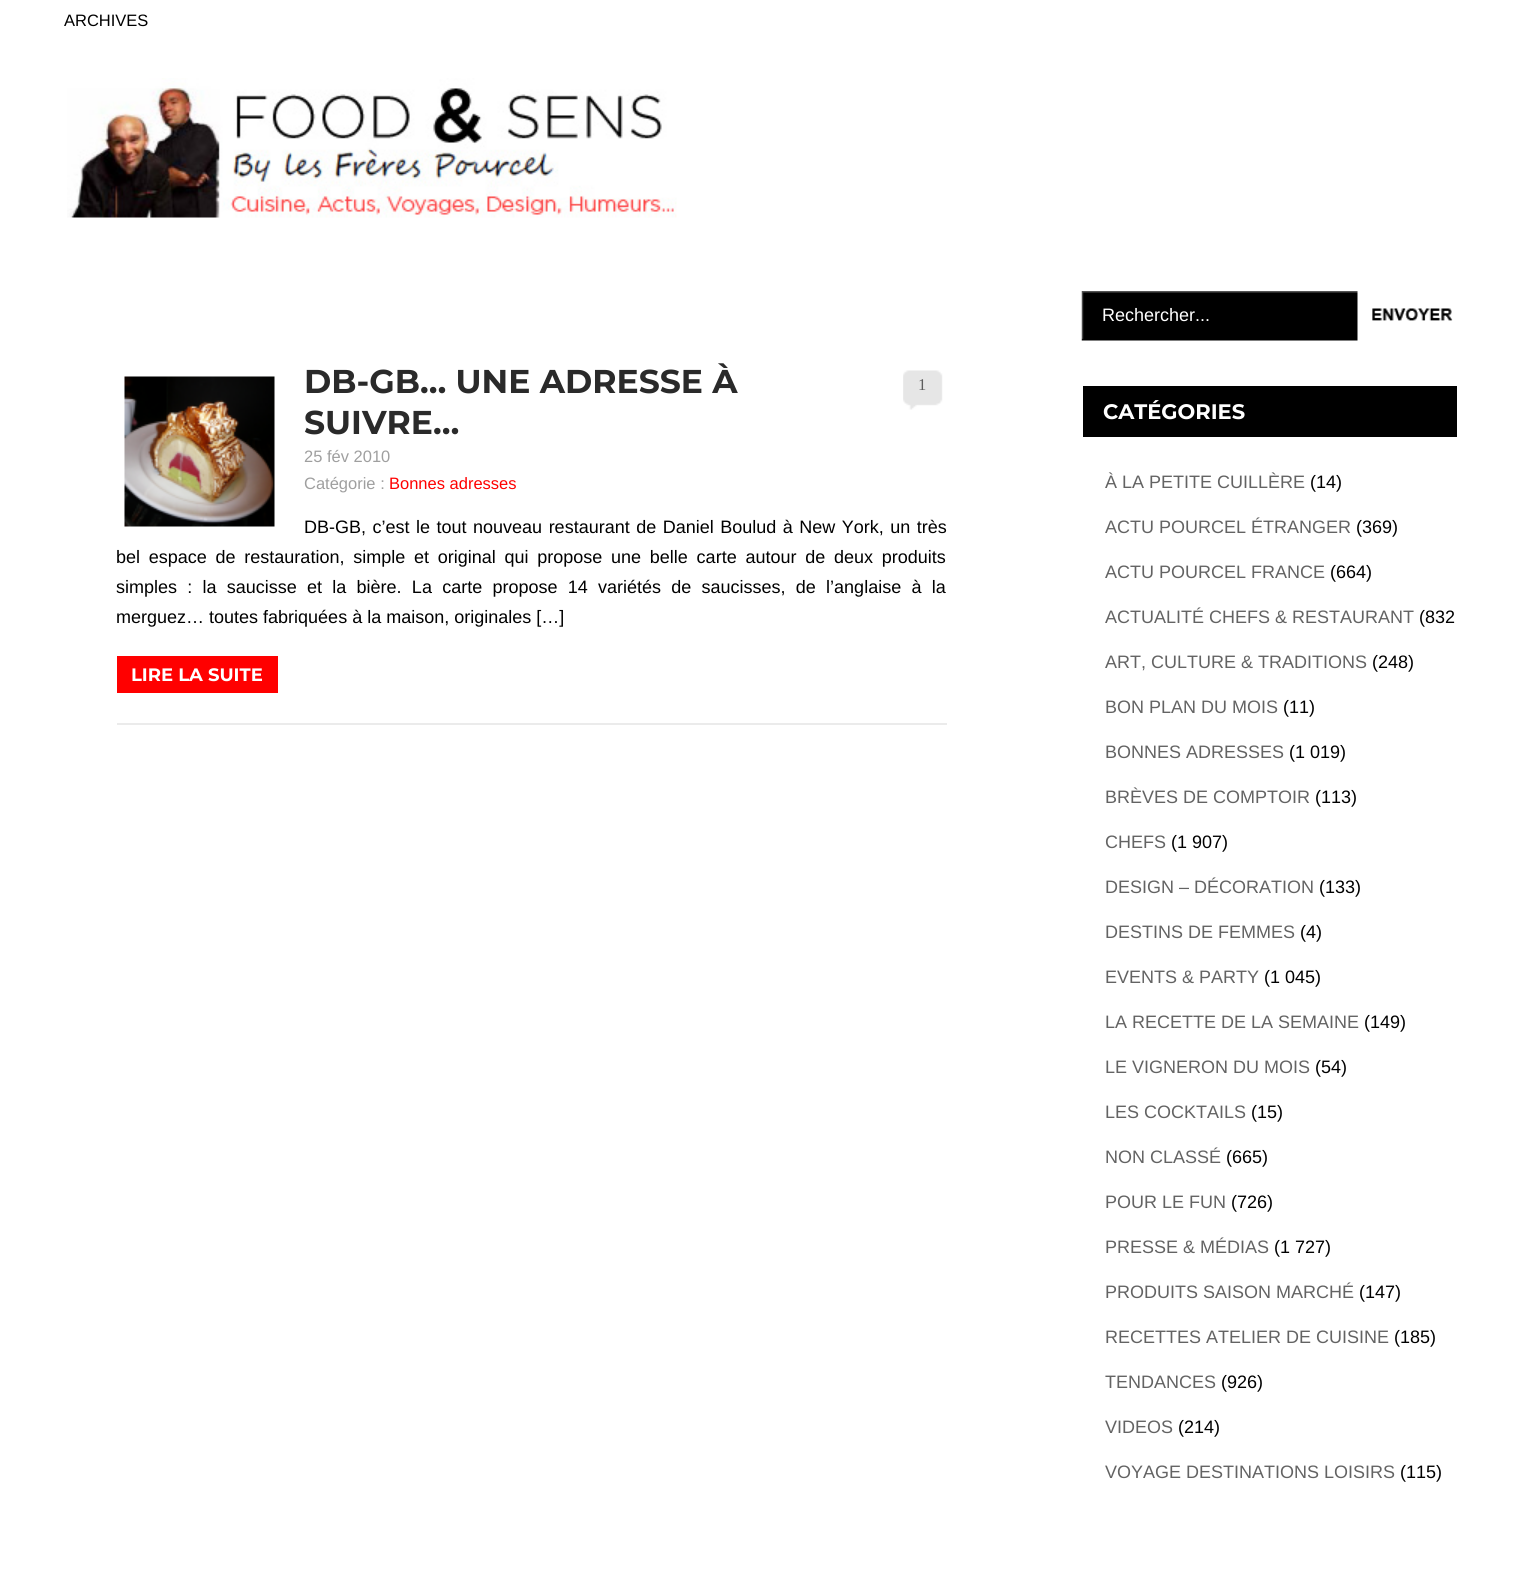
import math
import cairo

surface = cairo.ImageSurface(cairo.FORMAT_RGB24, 1523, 1582)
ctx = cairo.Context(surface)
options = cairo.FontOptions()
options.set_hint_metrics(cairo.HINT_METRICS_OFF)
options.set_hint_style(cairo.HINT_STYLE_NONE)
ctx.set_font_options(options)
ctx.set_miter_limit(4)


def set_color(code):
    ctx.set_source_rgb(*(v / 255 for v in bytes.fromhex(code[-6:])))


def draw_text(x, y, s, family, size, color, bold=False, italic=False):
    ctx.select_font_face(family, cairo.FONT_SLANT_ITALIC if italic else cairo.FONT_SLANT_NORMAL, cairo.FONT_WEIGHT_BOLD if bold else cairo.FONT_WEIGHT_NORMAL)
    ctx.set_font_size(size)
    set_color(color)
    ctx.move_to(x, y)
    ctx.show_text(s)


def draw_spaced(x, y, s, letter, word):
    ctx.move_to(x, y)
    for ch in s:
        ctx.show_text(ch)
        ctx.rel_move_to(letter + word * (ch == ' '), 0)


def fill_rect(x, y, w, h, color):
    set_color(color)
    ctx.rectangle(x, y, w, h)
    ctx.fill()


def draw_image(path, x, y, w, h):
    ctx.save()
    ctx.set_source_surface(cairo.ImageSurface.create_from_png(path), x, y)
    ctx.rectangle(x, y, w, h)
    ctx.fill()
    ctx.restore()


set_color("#ffffff")
ctx.paint()
draw_text(64, 26, "ARCHIVES", "Liberation Sans", 16.5, "#000000")
draw_image("assets/img1.png", 67, 78, 610, 140)
draw_image("assets/img2.png", 124, 376, 151, 151)
draw_text(304, 393, "DB-GB… UNE ADRESSE À", "Montserrat Thin", 33, "#2a2a2a")
draw_text(304, 434, "SUIVRE…", "Montserrat Thin", 33, "#2a2a2a")
draw_image("assets/img3.png", 903, 370, 40, 40)
draw_text(918, 390, "1", "Liberation Serif", 16.5, "#5d5d5d")
draw_text(304, 462, "25 fév 2010", "Liberation Sans", 16.5, "#9f9f9f")
draw_text(304, 489, "Catégorie :", "Liberation Sans", 16.5, "#9f9f9f")
draw_text(389, 489, "Bonnes adresses", "Liberation Sans", 16.5, "#ff0000")
ctx.set_font_size(18)
set_color("#000000")
draw_spaced(304, 533, "DB-GB, c’est le tout nouveau restaurant de Daniel Boulud à New York, un très", 0, 1.5)
draw_spaced(116, 563, "bel espace de restauration, simple et original qui propose une belle carte autour de deux produits", 0, 3.75)
draw_spaced(116, 593, "simples : la saucisse et la bière. La carte propose 14 variétés de saucisses, de l’anglaise à la", 0, 5.25)
draw_text(116, 623, "merguez… toutes fabriquées à la maison, originales […]", "Liberation Sans", 18, "#000000")
fill_rect(117, 656, 161, 37, "#ff0000")
draw_text(131, 681, "LIRE LA SUITE", "Montserrat Thin", 18, "#ffffff")
fill_rect(117, 723, 830, 2, "#ebebeb")
draw_image("assets/img4.png", 1081, 291, 277, 50)
draw_text(1102, 321, "Rechercher...", "Liberation Sans", 18, "#ffffff")
draw_image("assets/img5.png", 1372, 308, 81, 13)
fill_rect(1083, 386, 374, 51, "#000000")
draw_text(1103, 419, "CATÉGORIES", "Montserrat Thin", 21, "#ffffff")
draw_text(1105, 488, "À LA PETITE CUILLÈRE", "Liberation Sans", 18, "#636363")
draw_text(1310, 488, "(14)", "Liberation Sans", 18, "#000000")
draw_text(1105, 533, "ACTU POURCEL ÉTRANGER", "Liberation Sans", 18, "#636363")
draw_text(1356, 533, "(369)", "Liberation Sans", 18, "#000000")
draw_text(1105, 578, "ACTU POURCEL FRANCE", "Liberation Sans", 18, "#636363")
draw_text(1330, 578, "(664)", "Liberation Sans", 18, "#000000")
draw_text(1105, 623, "ACTUALITÉ CHEFS & RESTAURANT", "Liberation Sans", 18, "#636363")
draw_text(1419, 623, "(832", "Liberation Sans", 18, "#000000")
draw_text(1105, 668, "ART, CULTURE & TRADITIONS", "Liberation Sans", 18, "#636363")
draw_text(1372, 668, "(248)", "Liberation Sans", 18, "#000000")
draw_text(1105, 713, "BON PLAN DU MOIS", "Liberation Sans", 18, "#636363")
draw_text(1283, 713, "(11)", "Liberation Sans", 18, "#000000")
draw_text(1105, 758, "BONNES ADRESSES", "Liberation Sans", 18, "#636363")
draw_text(1289, 758, "(1 019)", "Liberation Sans", 18, "#000000")
draw_text(1105, 803, "BRÈVES DE COMPTOIR", "Liberation Sans", 18, "#636363")
draw_text(1315, 803, "(113)", "Liberation Sans", 18, "#000000")
draw_text(1105, 848, "CHEFS", "Liberation Sans", 18, "#636363")
draw_text(1171, 848, "(1 907)", "Liberation Sans", 18, "#000000")
draw_text(1105, 893, "DESIGN – DÉCORATION", "Liberation Sans", 18, "#636363")
draw_text(1319, 893, "(133)", "Liberation Sans", 18, "#000000")
draw_text(1105, 938, "DESTINS DE FEMMES", "Liberation Sans", 18, "#636363")
draw_text(1300, 938, "(4)", "Liberation Sans", 18, "#000000")
draw_text(1105, 983, "EVENTS & PARTY", "Liberation Sans", 18, "#636363")
draw_text(1264, 983, "(1 045)", "Liberation Sans", 18, "#000000")
draw_text(1105, 1028, "LA RECETTE DE LA SEMAINE", "Liberation Sans", 18, "#636363")
draw_text(1364, 1028, "(149)", "Liberation Sans", 18, "#000000")
draw_text(1105, 1073, "LE VIGNERON DU MOIS", "Liberation Sans", 18, "#636363")
draw_text(1315, 1073, "(54)", "Liberation Sans", 18, "#000000")
draw_text(1105, 1118, "LES COCKTAILS", "Liberation Sans", 18, "#636363")
draw_text(1251, 1118, "(15)", "Liberation Sans", 18, "#000000")
draw_text(1105, 1163, "NON CLASSÉ", "Liberation Sans", 18, "#636363")
draw_text(1226, 1163, "(665)", "Liberation Sans", 18, "#000000")
draw_text(1105, 1208, "POUR LE FUN", "Liberation Sans", 18, "#636363")
draw_text(1231, 1208, "(726)", "Liberation Sans", 18, "#000000")
draw_text(1105, 1253, "PRESSE & MÉDIAS", "Liberation Sans", 18, "#636363")
draw_text(1274, 1253, "(1 727)", "Liberation Sans", 18, "#000000")
draw_text(1105, 1298, "PRODUITS SAISON MARCHÉ", "Liberation Sans", 18, "#636363")
draw_text(1359, 1298, "(147)", "Liberation Sans", 18, "#000000")
draw_text(1105, 1343, "RECETTES ATELIER DE CUISINE", "Liberation Sans", 18, "#636363")
draw_text(1394, 1343, "(185)", "Liberation Sans", 18, "#000000")
draw_text(1105, 1388, "TENDANCES", "Liberation Sans", 18, "#636363")
draw_text(1221, 1388, "(926)", "Liberation Sans", 18, "#000000")
draw_text(1105, 1433, "VIDEOS", "Liberation Sans", 18, "#636363")
draw_text(1178, 1433, "(214)", "Liberation Sans", 18, "#000000")
draw_text(1105, 1478, "VOYAGE DESTINATIONS LOISIRS", "Liberation Sans", 18, "#636363")
draw_text(1400, 1478, "(115)", "Liberation Sans", 18, "#000000")
surface.write_to_png("output.png")
